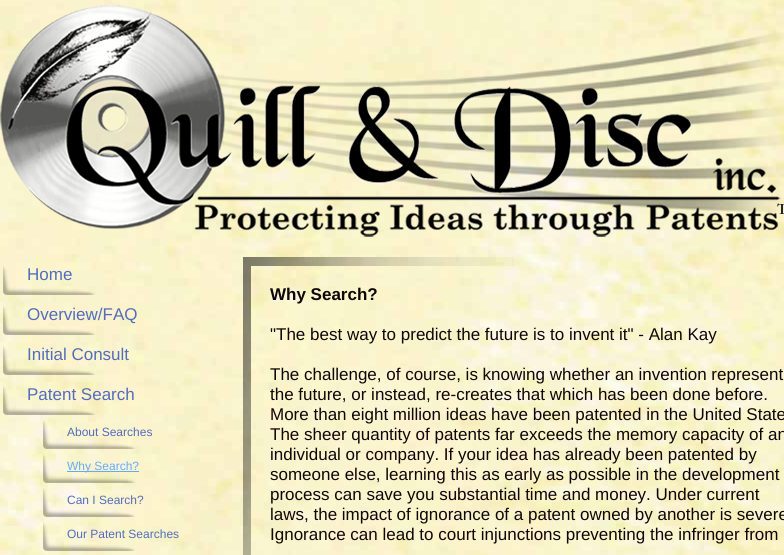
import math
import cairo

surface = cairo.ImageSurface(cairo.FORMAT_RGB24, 784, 555)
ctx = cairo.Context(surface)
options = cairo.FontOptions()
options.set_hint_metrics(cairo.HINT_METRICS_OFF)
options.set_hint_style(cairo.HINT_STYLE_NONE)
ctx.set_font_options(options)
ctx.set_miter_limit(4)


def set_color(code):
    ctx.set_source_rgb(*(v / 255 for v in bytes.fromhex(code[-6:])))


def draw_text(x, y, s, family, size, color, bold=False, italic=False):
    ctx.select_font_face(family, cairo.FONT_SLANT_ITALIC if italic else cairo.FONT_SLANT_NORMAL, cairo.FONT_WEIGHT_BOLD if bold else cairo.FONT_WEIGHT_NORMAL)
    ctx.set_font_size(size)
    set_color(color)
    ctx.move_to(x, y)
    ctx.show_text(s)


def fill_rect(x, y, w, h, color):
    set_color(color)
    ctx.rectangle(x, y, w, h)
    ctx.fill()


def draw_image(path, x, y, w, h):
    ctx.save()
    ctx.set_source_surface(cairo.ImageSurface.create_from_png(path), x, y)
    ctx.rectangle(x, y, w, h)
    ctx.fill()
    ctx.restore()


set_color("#ffffff")
ctx.paint()
draw_image("assets/img1.png", 0, 0, 784, 555)
draw_image("assets/img2.png", 0, 5, 784, 232)
draw_image("assets/img3.png", 3, 266, 92, 29)
draw_text(27, 280, "Home", "Liberation Sans", 17, "#536dbd")
draw_image("assets/img4.png", 3, 306, 92, 29)
draw_text(27, 320, "Overview/FAQ", "Liberation Sans", 17, "#536dbd")
draw_image("assets/img5.png", 3, 346, 92, 29)
draw_text(27, 360, "Initial Consult", "Liberation Sans", 17, "#536dbd")
draw_image("assets/img6.png", 3, 386, 92, 29)
draw_text(27, 400, "Patent Search", "Liberation Sans", 17, "#536dbd")
draw_image("assets/img7.png", 43, 420, 92, 29)
draw_text(67, 436, "About Searches", "Liberation Sans", 12, "#536dbd")
draw_image("assets/img8.png", 43, 454, 92, 29)
fill_rect(67, 471, 72, 1, "#66aaff")
draw_text(67, 470, "Why Search?", "Liberation Sans", 12, "#66aaff")
draw_image("assets/img9.png", 43, 488, 92, 29)
draw_text(67, 504, "Can I Search?", "Liberation Sans", 12, "#536dbd")
draw_image("assets/img10.png", 43, 522, 92, 29)
draw_text(67, 538, "Our Patent Searches", "Liberation Sans", 12, "#536dbd")
draw_image("assets/img11.png", 243, 257, 271, 298)
draw_text(270, 300, "Why Search?", "Liberation Sans", 17, "#100508", bold=True)
draw_text(270, 340, "\"The best way to predict the future is to invent it\" - Alan Kay", "Liberation Sans", 17, "#100508")
draw_text(270, 380, "The challenge, of course, is knowing whether an invention represent", "Liberation Sans", 17, "#100508")
draw_text(270, 400, "the future, or instead, re-creates that which has been done before.", "Liberation Sans", 17, "#100508")
draw_text(270, 420, "More than eight million ideas have been patented in the United State", "Liberation Sans", 17, "#100508")
draw_text(270, 440, "The sheer quantity of patents far exceeds the memory capacity of an", "Liberation Sans", 17, "#100508")
draw_text(270, 460, "individual or company. If your idea has already been patented by", "Liberation Sans", 17, "#100508")
draw_text(270, 480, "someone else, learning this as early as possible in the development", "Liberation Sans", 17, "#100508")
draw_text(270, 500, "process can save you substantial time and money. Under current", "Liberation Sans", 17, "#100508")
draw_text(270, 520, "laws, the impact of ignorance of a patent owned by another is severe", "Liberation Sans", 17, "#100508")
draw_text(270, 540, "Ignorance can lead to court injunctions preventing the infringer from", "Liberation Sans", 17, "#100508")
surface.write_to_png("output.png")
